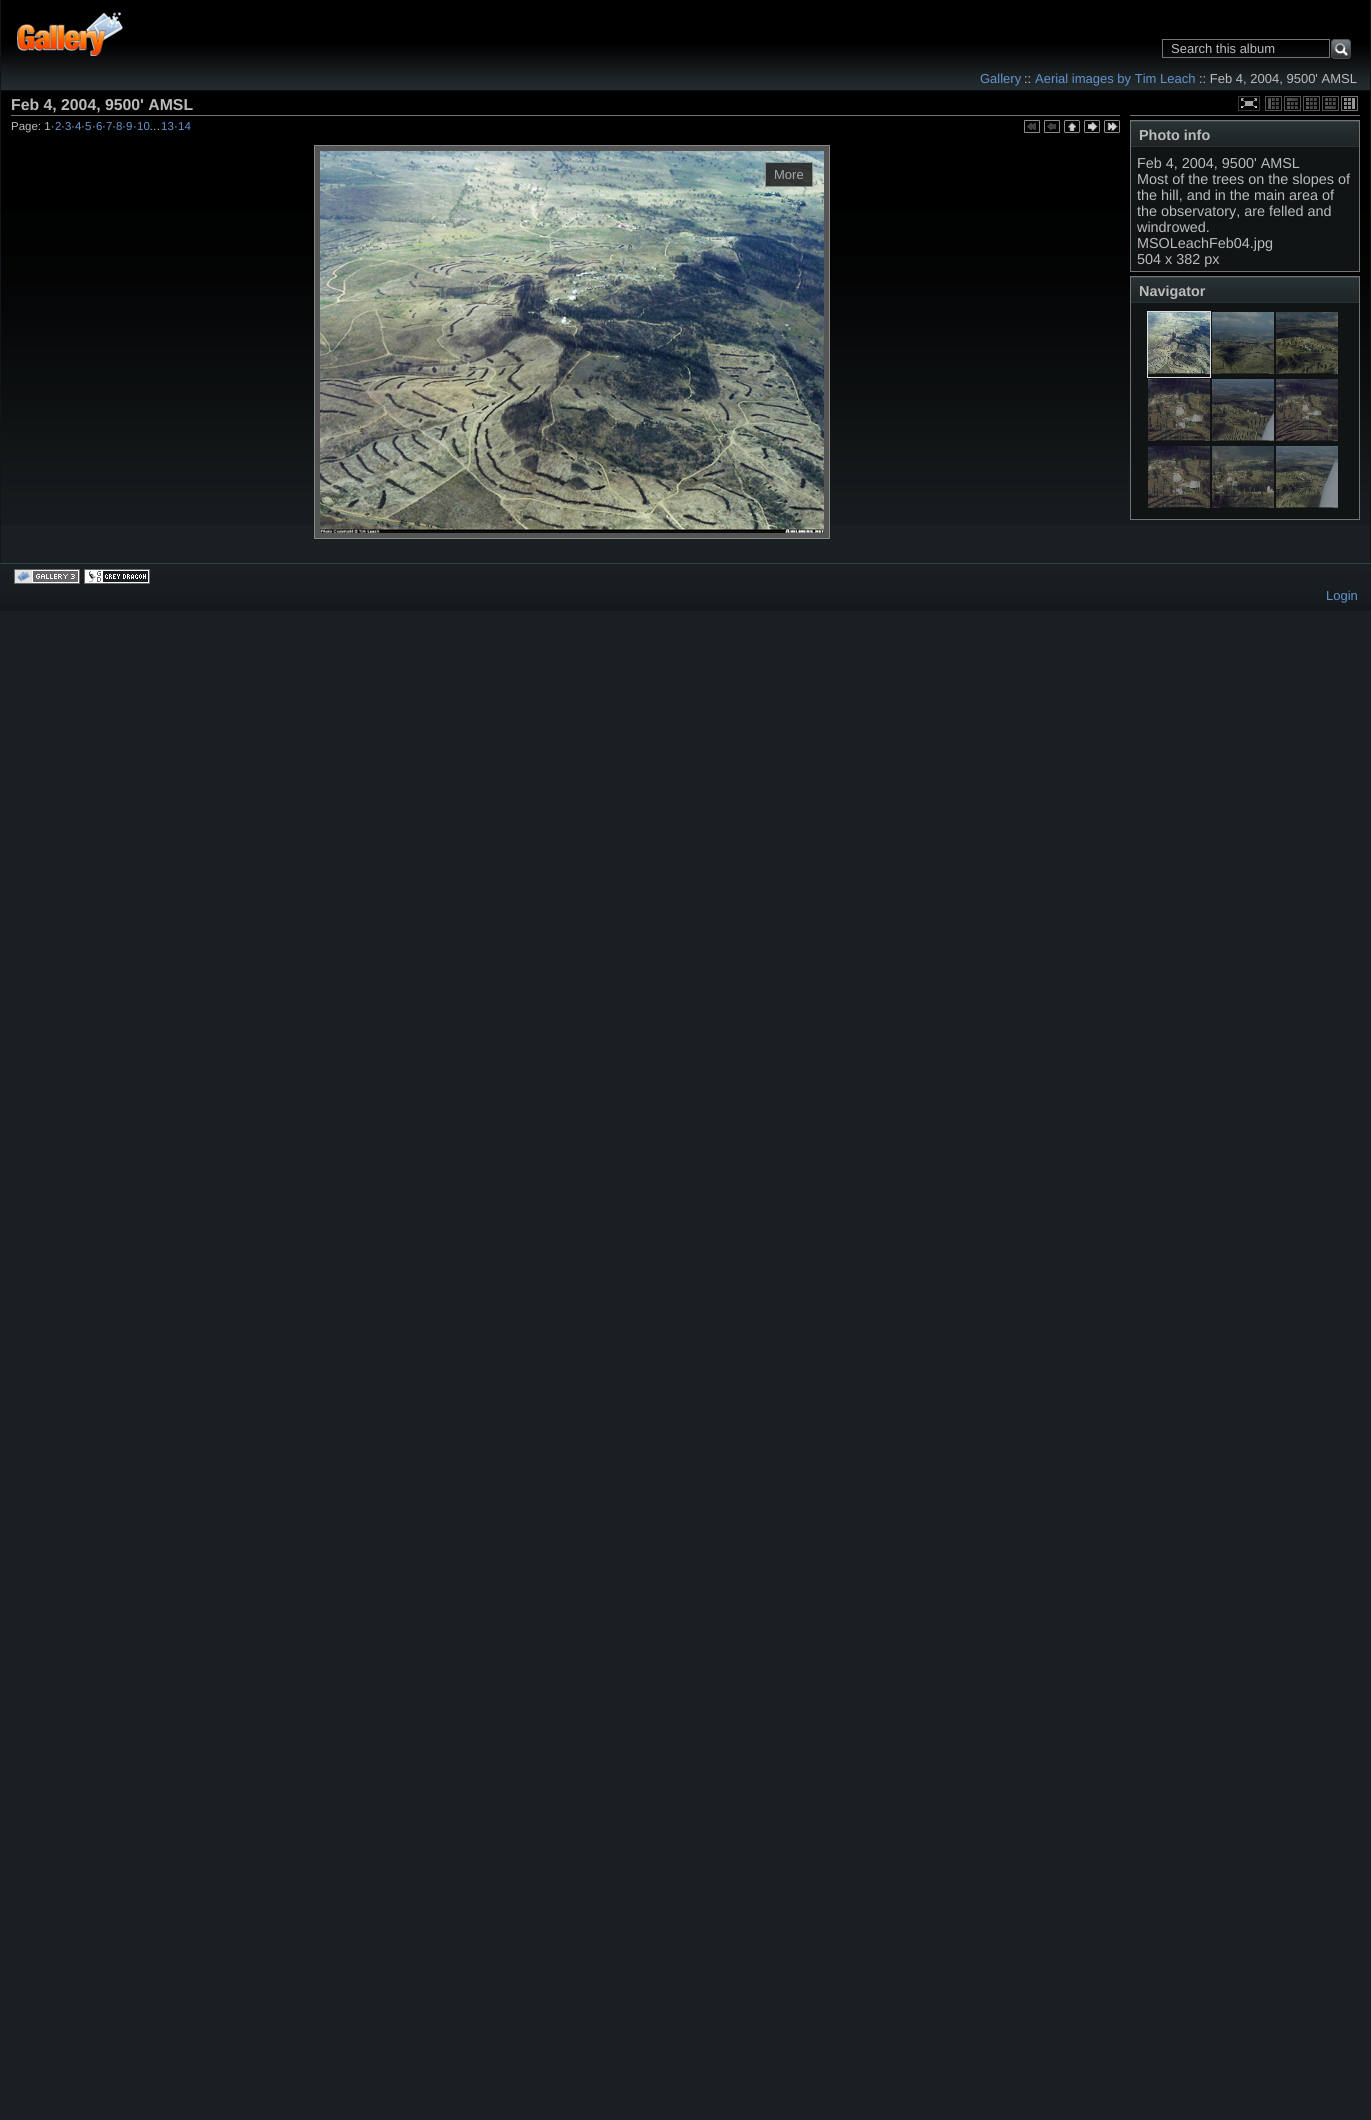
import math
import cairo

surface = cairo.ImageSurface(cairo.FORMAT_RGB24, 1371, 2120)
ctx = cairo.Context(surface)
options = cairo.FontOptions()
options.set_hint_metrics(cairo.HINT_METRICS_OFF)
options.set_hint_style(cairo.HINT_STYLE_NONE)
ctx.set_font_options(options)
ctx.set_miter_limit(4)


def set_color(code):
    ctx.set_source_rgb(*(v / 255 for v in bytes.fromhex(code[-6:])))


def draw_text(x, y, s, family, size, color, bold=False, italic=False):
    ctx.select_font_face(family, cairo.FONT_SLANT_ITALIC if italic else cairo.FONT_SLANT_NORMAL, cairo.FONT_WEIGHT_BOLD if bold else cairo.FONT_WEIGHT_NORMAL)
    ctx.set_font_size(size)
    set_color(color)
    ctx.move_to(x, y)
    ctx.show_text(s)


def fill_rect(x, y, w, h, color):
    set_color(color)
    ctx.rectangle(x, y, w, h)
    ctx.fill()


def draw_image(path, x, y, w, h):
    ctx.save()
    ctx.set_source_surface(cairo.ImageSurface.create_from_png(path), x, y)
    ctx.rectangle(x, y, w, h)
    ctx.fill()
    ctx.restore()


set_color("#1a2022")
ctx.paint()
draw_image("assets/img1.png", 1, 0, 1369, 90)
draw_image("assets/img2.png", 17, 12, 106, 44)
ctx.rectangle(1162.5, 39.5, 167, 18)
set_color("#737373")
ctx.set_line_width(1)
ctx.stroke()
draw_text(1171, 53, "Search this album", "Liberation Sans", 13, "#bbbbbb")
draw_image("assets/img3.png", 1331, 39, 20, 20)
draw_text(980, 83, "Gallery", "Liberation Sans", 13, "#6392cf")
draw_text(1024, 83, "::", "Liberation Sans", 13, "#bbbbbb")
draw_text(1035, 83, "Aerial images by Tim Leach", "Liberation Sans", 13, "#6392cf")
draw_text(1199, 83, ":: Feb 4, 2004, 9500' AMSL", "Liberation Sans", 13, "#bbbbbb")
draw_image("assets/img4.png", 1, 90, 1369, 435)
fill_rect(1370, 0, 1, 563, "#10151c")
fill_rect(0, 0, 1, 563, "#10151c")
fill_rect(11, 115, 1109, 1, "#737373")
draw_text(11, 110, "Feb 4, 2004, 9500' AMSL", "Liberation Sans", 15.8, "#bbbbbb", bold=True)
draw_text(11, 130, "Page: 1·", "Liberation Sans", 11.5, "#bbbbbb")
draw_text(55, 130, "2", "Liberation Sans", 11.5, "#6392cf")
draw_text(61, 130, "·", "Liberation Sans", 11.5, "#bbbbbb")
draw_text(65, 130, "3", "Liberation Sans", 11.5, "#6392cf")
draw_text(71, 130, "·", "Liberation Sans", 11.5, "#bbbbbb")
draw_text(75, 130, "4", "Liberation Sans", 11.5, "#6392cf")
draw_text(81, 130, "·", "Liberation Sans", 11.5, "#bbbbbb")
draw_text(85, 130, "5", "Liberation Sans", 11.5, "#6392cf")
draw_text(92, 130, "·", "Liberation Sans", 11.5, "#bbbbbb")
draw_text(96, 130, "6", "Liberation Sans", 11.5, "#6392cf")
draw_text(102, 130, "·", "Liberation Sans", 11.5, "#bbbbbb")
draw_text(106, 130, "7", "Liberation Sans", 11.5, "#6392cf")
draw_text(112, 130, "·", "Liberation Sans", 11.5, "#bbbbbb")
draw_text(116, 130, "8", "Liberation Sans", 11.5, "#6392cf")
draw_text(122, 130, "·", "Liberation Sans", 11.5, "#bbbbbb")
draw_text(126, 130, "9", "Liberation Sans", 11.5, "#6392cf")
draw_text(133, 130, "·", "Liberation Sans", 11.5, "#bbbbbb")
draw_text(137, 130, "10", "Liberation Sans", 11.5, "#6392cf")
draw_text(161, 130, "13", "Liberation Sans", 11.5, "#6392cf")
draw_text(174, 130, "·", "Liberation Sans", 11.5, "#bbbbbb")
draw_text(178, 130, "14", "Liberation Sans", 11.5, "#6392cf")
draw_text(149, 130, "…", "Liberation Sans", 11.5, "#bbbbbb")
draw_image("assets/img5.png", 1024, 120, 16, 13)
draw_image("assets/img6.png", 1044, 120, 16, 13)
draw_image("assets/img7.png", 1064, 120, 16, 13)
draw_image("assets/img8.png", 1084, 120, 16, 13)
draw_image("assets/img9.png", 1104, 120, 16, 13)
set_color("#555555")
ctx.rectangle(314.5, 145.5, 515, 393)
ctx.fill_preserve()
set_color("#888888")
ctx.stroke()
draw_image("assets/img10.png", 320, 151, 504, 382)
ctx.set_source_rgba(0.118, 0.118, 0.118, 0.85)
ctx.rectangle(765, 162, 48, 25)
ctx.fill()
ctx.rectangle(765.5, 162.5, 47, 24)
ctx.set_source_rgba(0.6, 0.6, 0.6, 0.85)
ctx.stroke()
draw_text(774, 179, "More", "Liberation Sans", 13, "#a6a7a7")
draw_image("assets/img11.png", 1238, 96, 22, 15)
draw_image("assets/img12.png", 1265, 96, 17, 15)
draw_image("assets/img13.png", 1284, 96, 17, 15)
draw_image("assets/img14.png", 1303, 96, 17, 15)
draw_image("assets/img15.png", 1322, 96, 17, 15)
draw_image("assets/img16.png", 1341, 96, 17, 15)
fill_rect(1130, 115, 230, 1, "#737373")
fill_rect(1131, 147, 228, 124, "#101415")
ctx.rectangle(1130.5, 120.5, 229, 151)
set_color("#737373")
ctx.stroke()
draw_image("assets/img17.png", 1131, 121, 228, 26)
draw_text(1139, 140, "Photo info", "Liberation Sans", 14.4, "#bbbbbb", bold=True)
draw_text(1137, 168, "Feb 4, 2004, 9500' AMSL", "Liberation Sans", 14.4, "#bbbbbb")
draw_text(1137, 184, "Most of the trees on the slopes of", "Liberation Sans", 14.4, "#bbbbbb")
draw_text(1137, 200, "the hill, and in the main area of", "Liberation Sans", 14.4, "#bbbbbb")
draw_text(1137, 216, "the observatory, are felled and", "Liberation Sans", 14.4, "#bbbbbb")
draw_text(1137, 232, "windrowed.", "Liberation Sans", 14.4, "#bbbbbb")
draw_text(1137, 248, "MSOLeachFeb04.jpg", "Liberation Sans", 14.4, "#bbbbbb")
draw_text(1137, 264, "504 x 382 px", "Liberation Sans", 14.4, "#bbbbbb")
fill_rect(1131, 303, 228, 216, "#101415")
ctx.rectangle(1130.5, 276.5, 229, 243)
set_color("#737373")
ctx.stroke()
draw_image("assets/img17.png", 1131, 277, 228, 26)
draw_text(1139, 296, "Navigator", "Liberation Sans", 14.4, "#bbbbbb", bold=True)
ctx.rectangle(1147.5, 311.5, 63, 66)
set_color("#dddddd")
ctx.stroke()
draw_image("assets/img18.png", 1148, 312, 62, 62)
draw_image("assets/img19.png", 1212, 312, 62, 62)
draw_image("assets/img20.png", 1276, 312, 62, 62)
draw_image("assets/img21.png", 1148, 379, 62, 62)
draw_image("assets/img22.png", 1212, 379, 62, 62)
draw_image("assets/img23.png", 1276, 379, 62, 62)
draw_image("assets/img24.png", 1148, 446, 62, 62)
draw_image("assets/img25.png", 1212, 446, 62, 62)
draw_image("assets/img26.png", 1276, 446, 62, 62)
draw_image("assets/img27.png", 0, 563, 1371, 48)
draw_image("assets/img28.png", 14, 569, 66, 15)
draw_image("assets/img29.png", 84, 569, 66, 15)
draw_text(1326, 600, "Login", "Liberation Sans", 13, "#6392cf")
surface.write_to_png("output.png")
